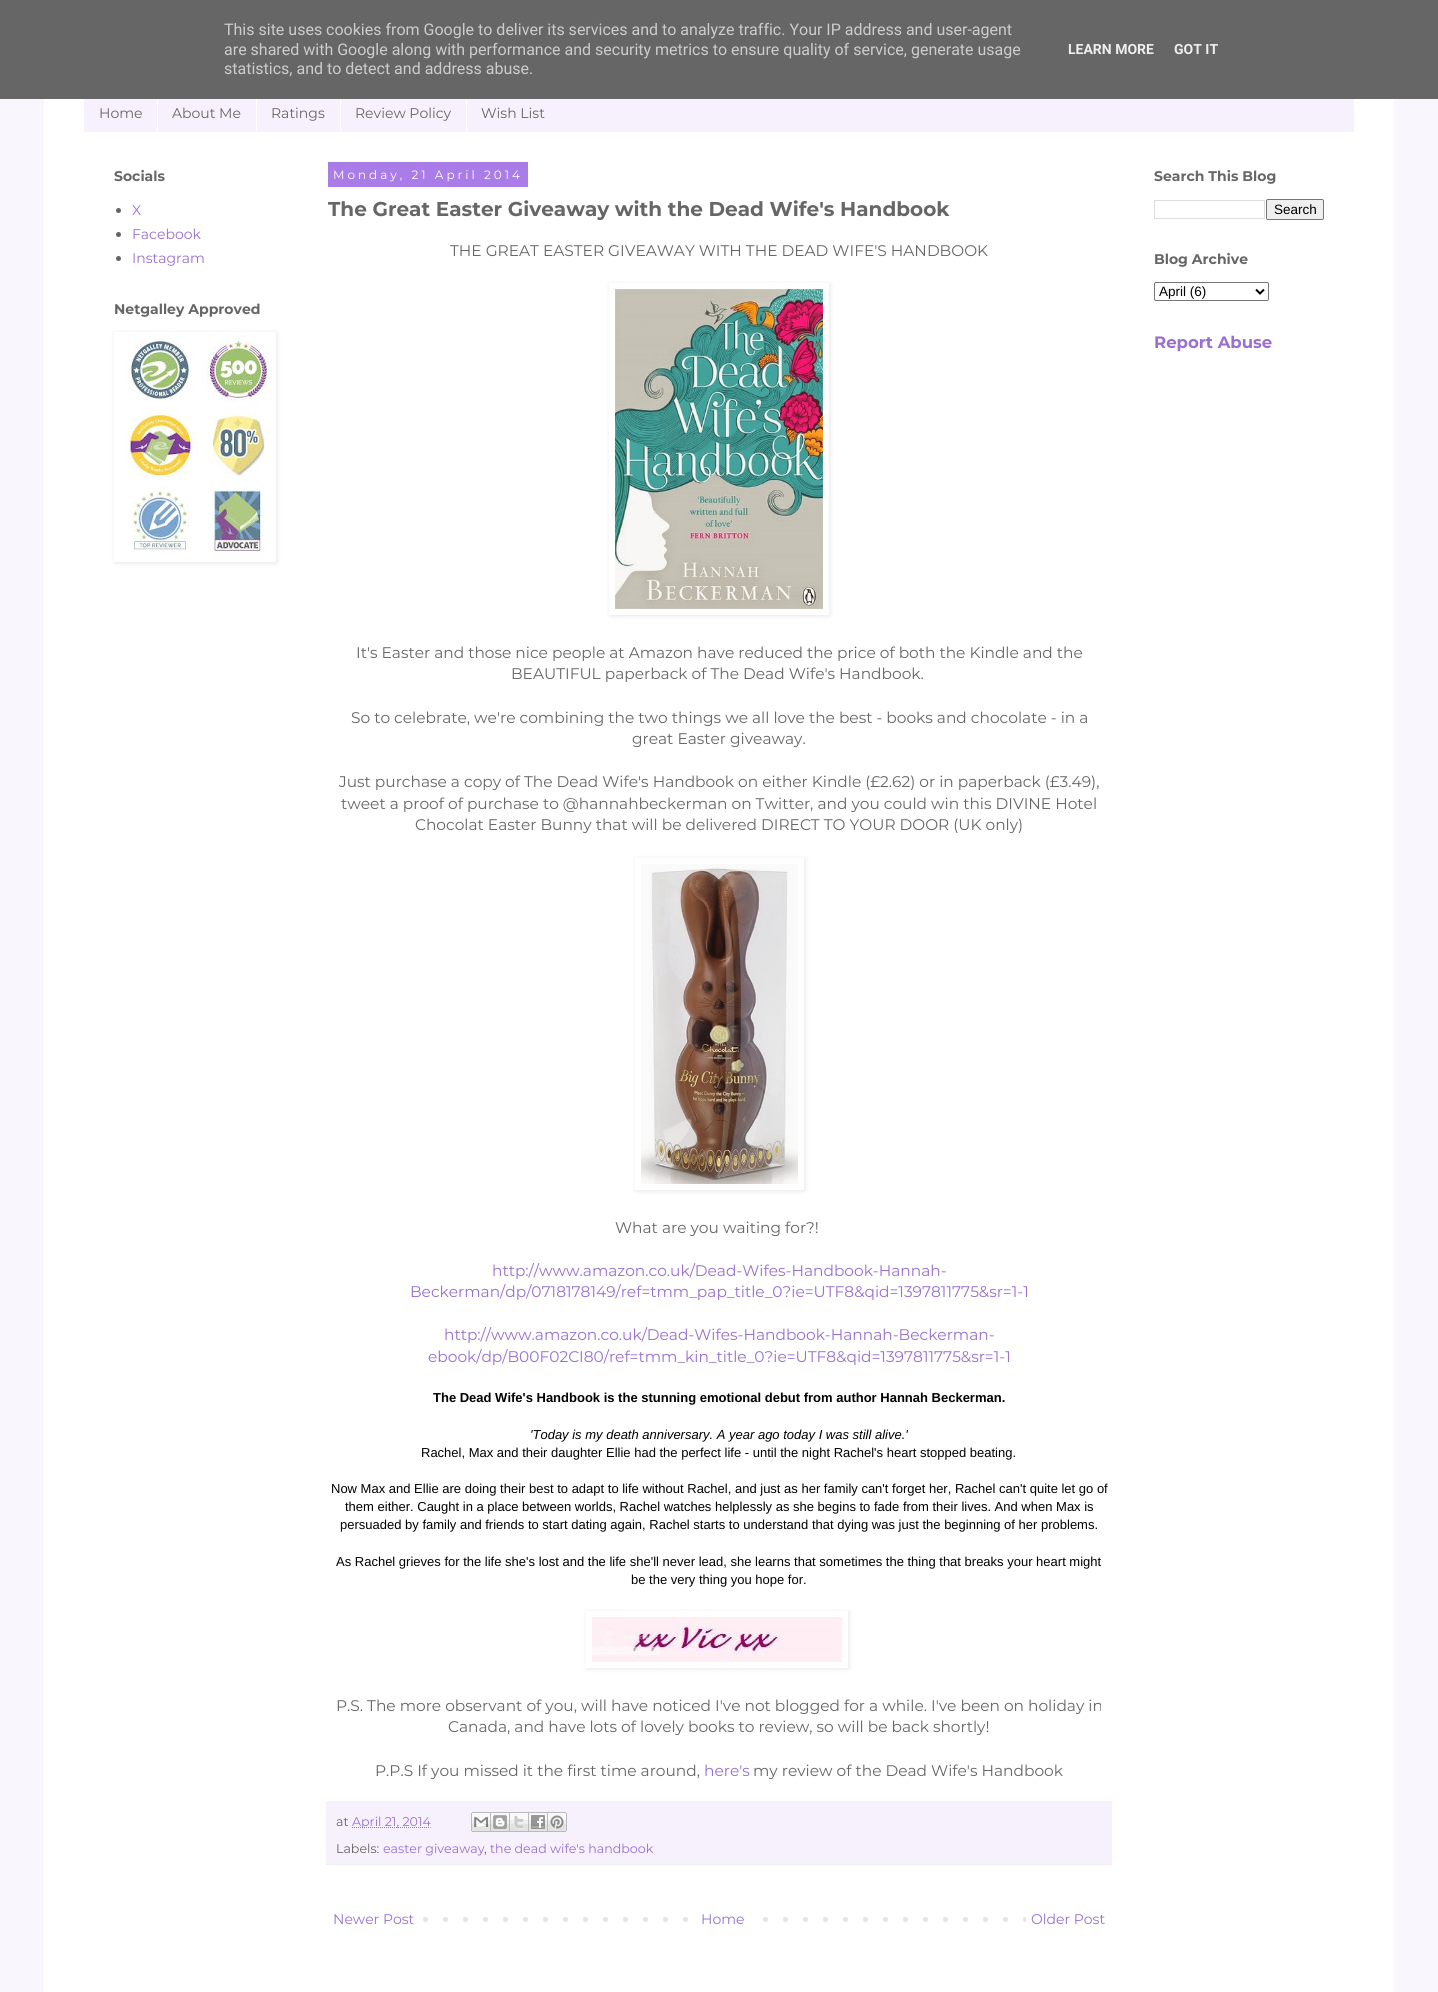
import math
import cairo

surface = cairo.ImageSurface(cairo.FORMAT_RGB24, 1438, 1992)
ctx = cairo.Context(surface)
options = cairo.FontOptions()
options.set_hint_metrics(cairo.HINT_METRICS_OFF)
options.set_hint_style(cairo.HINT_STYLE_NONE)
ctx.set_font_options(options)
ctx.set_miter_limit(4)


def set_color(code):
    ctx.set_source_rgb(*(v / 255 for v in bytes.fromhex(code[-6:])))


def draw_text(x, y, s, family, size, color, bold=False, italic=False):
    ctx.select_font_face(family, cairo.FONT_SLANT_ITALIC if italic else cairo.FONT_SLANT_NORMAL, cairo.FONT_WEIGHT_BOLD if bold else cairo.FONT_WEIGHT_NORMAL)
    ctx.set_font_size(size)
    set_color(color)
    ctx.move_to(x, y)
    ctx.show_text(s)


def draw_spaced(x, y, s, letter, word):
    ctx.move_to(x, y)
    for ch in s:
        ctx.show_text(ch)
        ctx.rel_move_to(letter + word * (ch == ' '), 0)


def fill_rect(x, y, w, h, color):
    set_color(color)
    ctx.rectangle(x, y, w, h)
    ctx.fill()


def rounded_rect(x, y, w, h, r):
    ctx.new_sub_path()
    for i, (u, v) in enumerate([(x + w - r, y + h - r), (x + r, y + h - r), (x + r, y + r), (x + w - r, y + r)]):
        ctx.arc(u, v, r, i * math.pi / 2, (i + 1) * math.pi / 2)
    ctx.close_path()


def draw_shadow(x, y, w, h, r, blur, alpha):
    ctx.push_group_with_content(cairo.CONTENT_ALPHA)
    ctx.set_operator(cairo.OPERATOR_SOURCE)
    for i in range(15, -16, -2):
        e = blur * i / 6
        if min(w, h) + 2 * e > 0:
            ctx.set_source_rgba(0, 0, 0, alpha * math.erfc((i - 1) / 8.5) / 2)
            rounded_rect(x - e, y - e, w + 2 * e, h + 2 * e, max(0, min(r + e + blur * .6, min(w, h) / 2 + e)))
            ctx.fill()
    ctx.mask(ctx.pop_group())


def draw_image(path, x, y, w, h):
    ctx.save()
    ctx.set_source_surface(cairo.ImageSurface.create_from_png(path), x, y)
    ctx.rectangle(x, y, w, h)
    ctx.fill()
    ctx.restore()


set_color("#f9f6fd")
ctx.paint()
fill_rect(44, 99, 1350, 1893, "#ffffff")
fill_rect(84, 99, 1270, 33, "#f6f1fc")
fill_rect(157, 96, 1, 35, "#ffffff")
fill_rect(256, 96, 1, 35, "#ffffff")
fill_rect(340, 96, 1, 35, "#ffffff")
fill_rect(466, 96, 1, 35, "#ffffff")
fill_rect(0, 0, 1438, 99, "#666666")
draw_text(224, 35, "This site uses cookies from Google to deliver its services and to analyze traffic. Your IP address and user-agent", "Roboto", 16, "#cccccc")
draw_text(224, 55, "are shared with Google along with performance and security metrics to ensure quality of service, generate usage", "Roboto", 16, "#cccccc")
draw_text(224, 74, "statistics, and to detect and address abuse.", "Roboto", 16, "#cccccc")
draw_text(1068, 54, "LEARN MORE", "Roboto", 14, "#eeeeee", bold=True)
draw_text(1174, 54, "GOT IT", "Roboto", 14, "#eeeeee", bold=True)
draw_text(99, 118, "Home", "Montserrat", 14, "#666666")
draw_text(172, 118, "About Me", "Montserrat", 14, "#666666")
draw_text(271, 118, "Ratings", "Montserrat", 14, "#666666")
draw_text(355, 118, "Review Policy", "Montserrat", 14, "#666666")
draw_text(481, 118, "Wish List", "Montserrat", 14, "#666666")
draw_text(114, 181, "Socials", "Montserrat", 14, "#666666", bold=True)
ctx.new_path()
ctx.arc(118.5, 210.5, 2.5, 0, 2 * math.pi)
ctx.fill()
draw_text(132, 215, "X", "Montserrat", 14, "#996fd0")
set_color("#666666")
ctx.new_path()
ctx.arc(118.5, 234.5, 2.5, 0, 2 * math.pi)
ctx.fill()
draw_text(132, 239, "Facebook", "Montserrat", 14, "#996fd0")
set_color("#666666")
ctx.new_path()
ctx.arc(118.5, 258.5, 2.5, 0, 2 * math.pi)
ctx.fill()
draw_text(132, 263, "Instagram", "Montserrat", 14, "#996fd0")
draw_text(114, 314, "Netgalley Approved", "Montserrat", 14, "#666666", bold=True)
ctx.save()
ctx.set_fill_rule(cairo.FILL_RULE_EVEN_ODD)
ctx.new_path()
ctx.move_to(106, 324)
ctx.line_to(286, 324)
ctx.line_to(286, 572)
ctx.line_to(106, 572)
ctx.close_path()
ctx.move_to(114, 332)
ctx.line_to(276, 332)
ctx.line_to(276, 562)
ctx.line_to(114, 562)
ctx.close_path()
ctx.clip()
set_color("#000000")
draw_shadow(115, 333, 162, 230, 0, 2.5, 0.1)
ctx.restore()
draw_image("assets/img1.png", 125, 335, 147, 216)
fill_rect(328, 162, 200, 25, "#aa7ce8")
ctx.select_font_face("Montserrat")
ctx.set_font_size(12)
set_color("#ffffff")
draw_spaced(333, 179, "Monday, 21 April 2014", 3, 0)
draw_text(328, 216, "The Great Easter Giveaway with the Dead Wife's Handbook", "Montserrat", 20, "#666666", bold=True)
draw_text(450, 256, "THE GREAT EASTER GIVEAWAY WITH THE DEAD WIFE'S HANDBOOK", "Montserrat", 15.4, "#666666")
ctx.save()
ctx.set_fill_rule(cairo.FILL_RULE_EVEN_ODD)
ctx.new_path()
ctx.move_to(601, 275)
ctx.line_to(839, 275)
ctx.line_to(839, 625)
ctx.line_to(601, 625)
ctx.close_path()
ctx.move_to(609, 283)
ctx.line_to(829, 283)
ctx.line_to(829, 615)
ctx.line_to(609, 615)
ctx.close_path()
ctx.clip()
set_color("#000000")
draw_shadow(610, 284, 220, 332, 0, 2.5, 0.1)
ctx.restore()
draw_image("assets/img2.png", 615, 289, 208, 320)
draw_text(356, 658, "It's Easter and those nice people at Amazon have reduced the price of both the Kindle and the", "Montserrat", 15.4, "#666666")
draw_text(511, 679, "BEAUTIFUL paperback of The Dead Wife's Handbook.", "Montserrat", 15.4, "#666666")
draw_text(351, 723, "So to celebrate, we're combining the two things we all love the best - books and chocolate - in a", "Montserrat", 15.4, "#666666")
draw_text(632, 744, "great Easter giveaway.", "Montserrat", 15.4, "#666666")
draw_text(339, 787, "Just purchase a copy of The Dead Wife's Handbook on either Kindle (£2.62) or in paperback (£3.49),", "Montserrat", 15.4, "#666666")
draw_text(341, 809, "tweet a proof of purchase to @hannahbeckerman on Twitter, and you could win this DIVINE Hotel", "Montserrat", 15.4, "#666666")
draw_text(415, 830, "Chocolat Easter Bunny that will be delivered DIRECT TO YOUR DOOR (UK only)", "Montserrat", 15.4, "#666666")
ctx.save()
ctx.set_fill_rule(cairo.FILL_RULE_EVEN_ODD)
ctx.new_path()
ctx.move_to(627, 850)
ctx.line_to(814, 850)
ctx.line_to(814, 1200)
ctx.line_to(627, 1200)
ctx.close_path()
ctx.move_to(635, 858)
ctx.line_to(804, 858)
ctx.line_to(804, 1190)
ctx.line_to(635, 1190)
ctx.close_path()
ctx.clip()
set_color("#000000")
draw_shadow(636, 859, 169, 332, 0, 2.5, 0.1)
ctx.restore()
draw_image("assets/img3.png", 641, 864, 157, 320)
draw_text(615, 1233, "What are you waiting for?!", "Montserrat", 15.4, "#666666")
draw_text(492, 1276, "http://www.amazon.co.uk/Dead-Wifes-Handbook-Hannah-", "Montserrat", 15.4, "#996fd0")
draw_text(410, 1297, "Beckerman/dp/0718178149/ref=tmm_pap_title_0?ie=UTF8&qid=1397811775&sr=1-1", "Montserrat", 15.4, "#996fd0")
draw_text(444, 1340, "http://www.amazon.co.uk/Dead-Wifes-Handbook-Hannah-Beckerman-", "Montserrat", 15.4, "#996fd0")
draw_text(428, 1362, "ebook/dp/B00F02CI80/ref=tmm_kin_title_0?ie=UTF8&qid=1397811775&sr=1-1", "Montserrat", 15.4, "#996fd0")
draw_text(433, 1402, "The Dead Wife's Handbook is the stunning emotional debut from author Hannah Beckerman.", "Liberation Sans", 13, "#000000", bold=True)
draw_text(530, 1439, "'Today is my death anniversary. A year ago today I was still alive.'", "Liberation Sans", 13, "#000000", italic=True)
draw_text(421, 1457, "Rachel, Max and their daughter Ellie had the perfect life - until the night Rachel's heart stopped beating.", "Liberation Sans", 13, "#000000")
draw_text(331, 1493, "Now Max and Ellie are doing their best to adapt to life without Rachel, and just as her family can't forget her, Rachel can't quite let go of", "Liberation Sans", 13, "#000000")
draw_text(345, 1511, "them either. Caught in a place between worlds, Rachel watches helplessly as she begins to fade from their lives. And when Max is", "Liberation Sans", 13, "#000000")
draw_text(340, 1529, "persuaded by family and friends to start dating again, Rachel starts to understand that dying was just the beginning of her problems.", "Liberation Sans", 13, "#000000")
draw_text(336, 1566, "As Rachel grieves for the life she's lost and the life she'll never lead, she learns that sometimes the thing that breaks your heart might", "Liberation Sans", 13, "#000000")
draw_text(631, 1584, "be the very thing you hope for.", "Liberation Sans", 13, "#000000")
ctx.save()
ctx.set_fill_rule(cairo.FILL_RULE_EVEN_ODD)
ctx.new_path()
ctx.move_to(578, 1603)
ctx.line_to(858, 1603)
ctx.line_to(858, 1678)
ctx.line_to(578, 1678)
ctx.close_path()
ctx.move_to(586, 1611)
ctx.line_to(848, 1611)
ctx.line_to(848, 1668)
ctx.line_to(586, 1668)
ctx.close_path()
ctx.clip()
set_color("#000000")
draw_shadow(587, 1612, 262, 57, 0, 2.5, 0.1)
ctx.restore()
draw_image("assets/img4.png", 592, 1617, 250, 45)
draw_text(336, 1711, "P.S. The more observant of you, will have noticed I've not blogged for a while. I've been on holiday in", "Montserrat", 15.4, "#666666")
draw_text(448, 1732, "Canada, and have lots of lovely books to review, so will be back shortly!", "Montserrat", 15.4, "#666666")
draw_text(375, 1776, "P.P.S If you missed it the first time around,", "Montserrat", 15.4, "#666666")
draw_text(704, 1776, "here's", "Montserrat", 15.4, "#996fd0")
draw_text(753, 1776, "my review of the Dead Wife's Handbook", "Montserrat", 15.4, "#666666")
fill_rect(326, 1801, 786, 63, "#f6f1fc")
fill_rect(326, 1864, 786, 1, "#eeeeee")
draw_text(336, 1826, "at", "Montserrat", 12.6, "#666666")
ctx.new_path()
ctx.move_to(352, 1827.5)
ctx.line_to(430.5, 1827.5)
set_color("#996fd0")
ctx.set_line_width(1)
ctx.set_dash([1, 1])
ctx.stroke()
draw_text(352, 1826, "April 21, 2014", "Montserrat", 12.6, "#996fd0")
draw_image("assets/img5.png", 471, 1812, 20, 20)
draw_image("assets/img6.png", 491, 1812, 19, 20)
draw_image("assets/img7.png", 510, 1812, 19, 20)
draw_image("assets/img8.png", 529, 1812, 19, 20)
draw_image("assets/img9.png", 548, 1812, 19, 20)
draw_text(336, 1853, "Labels:", "Montserrat", 12.6, "#666666")
draw_text(383, 1853, "easter giveaway", "Montserrat", 12.6, "#996fd0")
draw_text(484, 1853, ",", "Montserrat", 12.6, "#666666")
draw_text(490, 1853, "the dead wife's handbook", "Montserrat", 12.6, "#996fd0")
draw_image("assets/img10.png", 423, 1917, 603, 5)
draw_text(333, 1924, "Newer Post", "Montserrat", 14, "#996fd0")
fill_rect(703, 1917, 46, 5, "#ffffff")
draw_text(701, 1924, "Home", "Montserrat", 14, "#996fd0")
draw_text(1031, 1924, "Older Post", "Montserrat", 14, "#996fd0")
draw_text(1154, 181, "Search This Blog", "Montserrat", 14, "#666666", bold=True)
ctx.rectangle(1154.5, 200.5, 110, 18)
set_color("#dddddd")
ctx.set_dash([])
ctx.stroke()
set_color("#efefef")
rounded_rect(1266.5, 199.5, 57, 20, 1.5)
ctx.fill_preserve()
set_color("#767676")
ctx.stroke()
draw_text(1274, 214, "Search", "Liberation Sans", 13.5, "#000000")
draw_text(1154, 264, "Blog Archive", "Montserrat", 14, "#666666", bold=True)
rounded_rect(1154.5, 282.5, 114, 18, 1.5)
set_color("#767676")
ctx.stroke()
ctx.new_path()
ctx.move_to(1256, 289.5)
ctx.line_to(1260, 293.5)
ctx.line_to(1264, 289.5)
set_color("#000000")
ctx.set_line_width(2)
ctx.stroke()
draw_text(1159, 296, "April (6)", "Liberation Sans", 13.5, "#000000")
draw_text(1154, 348, "Report Abuse", "Montserrat", 16.5, "#996fd0", bold=True)
surface.write_to_png("output.png")
